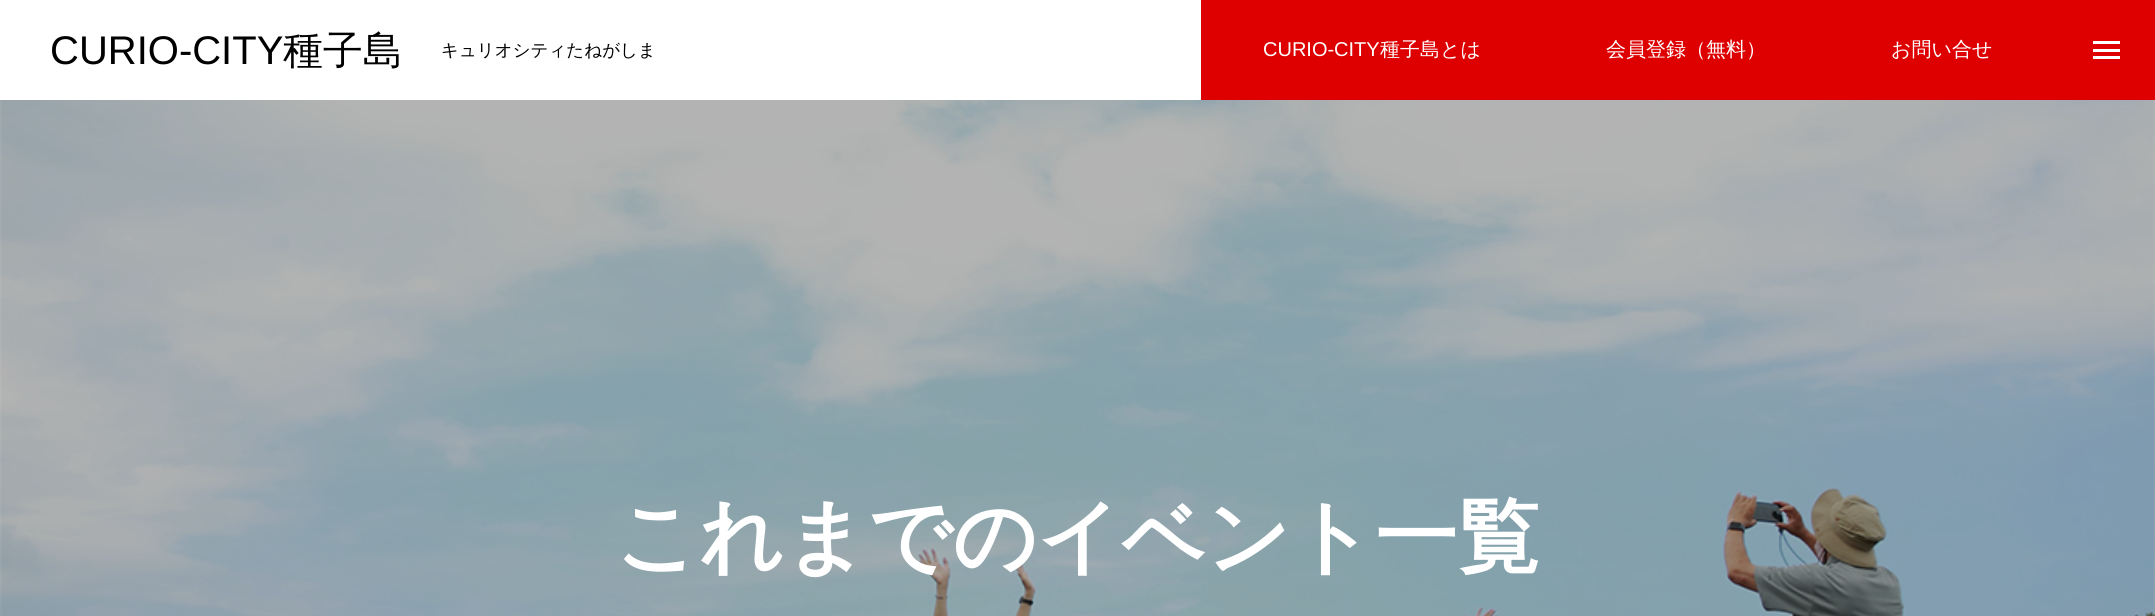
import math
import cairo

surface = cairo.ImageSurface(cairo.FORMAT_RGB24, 2155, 616)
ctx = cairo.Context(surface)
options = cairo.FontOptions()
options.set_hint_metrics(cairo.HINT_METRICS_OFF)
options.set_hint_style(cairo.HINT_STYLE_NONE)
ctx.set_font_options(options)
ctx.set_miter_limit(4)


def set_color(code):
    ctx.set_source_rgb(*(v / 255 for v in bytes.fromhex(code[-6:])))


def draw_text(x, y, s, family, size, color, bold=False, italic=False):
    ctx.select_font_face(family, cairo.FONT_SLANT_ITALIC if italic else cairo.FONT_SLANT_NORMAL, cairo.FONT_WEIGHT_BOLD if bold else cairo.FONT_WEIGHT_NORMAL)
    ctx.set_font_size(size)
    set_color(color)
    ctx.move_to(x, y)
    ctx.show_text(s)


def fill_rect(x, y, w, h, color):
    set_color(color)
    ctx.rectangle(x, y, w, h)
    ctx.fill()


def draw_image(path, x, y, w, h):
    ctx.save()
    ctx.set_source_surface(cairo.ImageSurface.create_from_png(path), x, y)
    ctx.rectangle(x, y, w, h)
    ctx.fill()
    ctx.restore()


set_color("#ffffff")
ctx.paint()
draw_text(50, 64, "CURIO-CITY", "Liberation Sans", 40, "#000000")
draw_text(283, 64, "種子島", "WenQuanYi Zen Hei Medium", 40, "#000000")
draw_text(441, 56, "キュリオシティたねがしま", "WenQuanYi Zen Hei Medium", 17.5, "#000000")
fill_rect(1201, 0, 954, 100, "#de0000")
draw_text(1263, 56, "CURIO-CITY", "Liberation Sans", 20, "#ffffff")
draw_text(1380, 56, "種子島とは", "WenQuanYi Zen Hei Medium", 20, "#ffffff")
draw_text(1606, 56, "会員登録（無料）", "WenQuanYi Zen Hei Medium", 20, "#ffffff")
draw_text(1891, 56, "お問い合せ", "WenQuanYi Zen Hei Medium", 20, "#ffffff")
fill_rect(2093, 41, 27, 3, "#ffffff")
fill_rect(2093, 49, 27, 3, "#ffffff")
fill_rect(2093, 56, 27, 3, "#ffffff")
draw_image("assets/img1.png", 0, 100, 2155, 516)
draw_text(615, 565, "これまでのイベント一覧", "WenQuanYi Zen Hei", 82.5, "#ffffff", bold=True)
surface.write_to_png("output.png")
